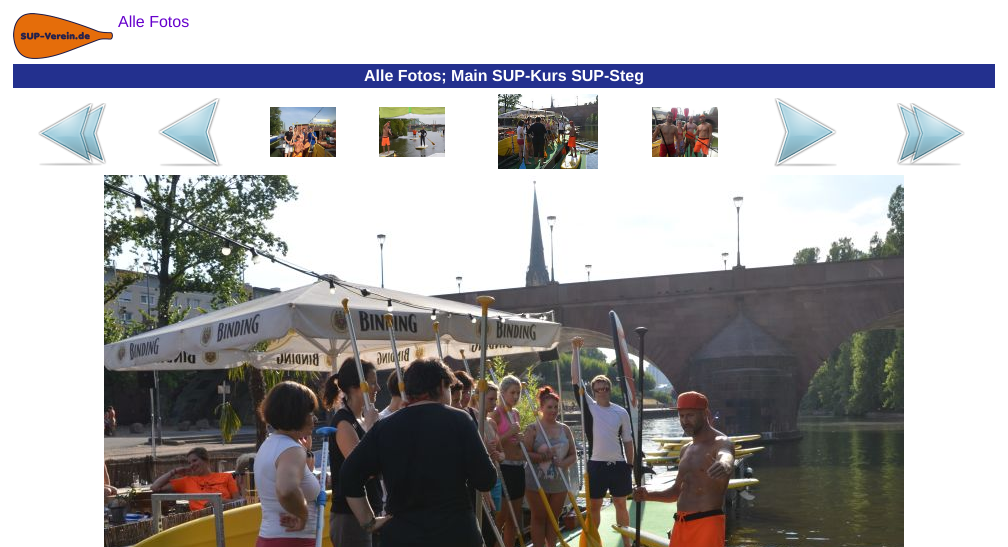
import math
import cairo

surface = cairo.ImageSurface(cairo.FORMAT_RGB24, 1008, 547)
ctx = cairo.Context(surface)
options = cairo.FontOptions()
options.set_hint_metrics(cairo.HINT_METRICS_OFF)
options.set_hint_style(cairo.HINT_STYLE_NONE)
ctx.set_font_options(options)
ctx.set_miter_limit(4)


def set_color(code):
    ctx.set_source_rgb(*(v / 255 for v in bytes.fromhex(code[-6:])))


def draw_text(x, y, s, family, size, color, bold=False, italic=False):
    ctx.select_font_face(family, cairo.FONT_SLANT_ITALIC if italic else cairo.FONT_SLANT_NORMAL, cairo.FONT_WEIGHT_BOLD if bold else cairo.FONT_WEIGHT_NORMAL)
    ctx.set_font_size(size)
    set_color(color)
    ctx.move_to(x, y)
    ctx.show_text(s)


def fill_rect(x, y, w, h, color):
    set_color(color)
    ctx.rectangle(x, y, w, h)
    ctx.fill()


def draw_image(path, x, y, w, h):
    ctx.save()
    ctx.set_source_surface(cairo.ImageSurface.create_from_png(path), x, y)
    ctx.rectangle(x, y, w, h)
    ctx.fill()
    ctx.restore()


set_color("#ffffff")
ctx.paint()
draw_image("assets/img1.png", 13, 13, 100, 46)
draw_text(118, 27, "Alle Fotos", "Liberation Sans", 16, "#6600cc")
fill_rect(13, 64, 982, 24, "#23308e")
draw_text(364, 81, "Alle Fotos; Main SUP-Kurs SUP-Steg", "Liberation Sans", 16, "#ffffff", bold=True)
draw_image("assets/img2.png", 38, 103, 69, 63)
draw_image("assets/img3.png", 158, 98, 65, 69)
draw_image("assets/img4.png", 270, 107, 66, 50)
draw_image("assets/img5.png", 379, 107, 66, 50)
draw_image("assets/img6.png", 498, 94, 100, 75)
draw_image("assets/img7.png", 652, 107, 66, 50)
draw_image("assets/img8.png", 774, 98, 63, 69)
draw_image("assets/img9.png", 896, 103, 69, 63)
draw_image("assets/img10.png", 104, 175, 800, 372)
surface.write_to_png("output.png")
